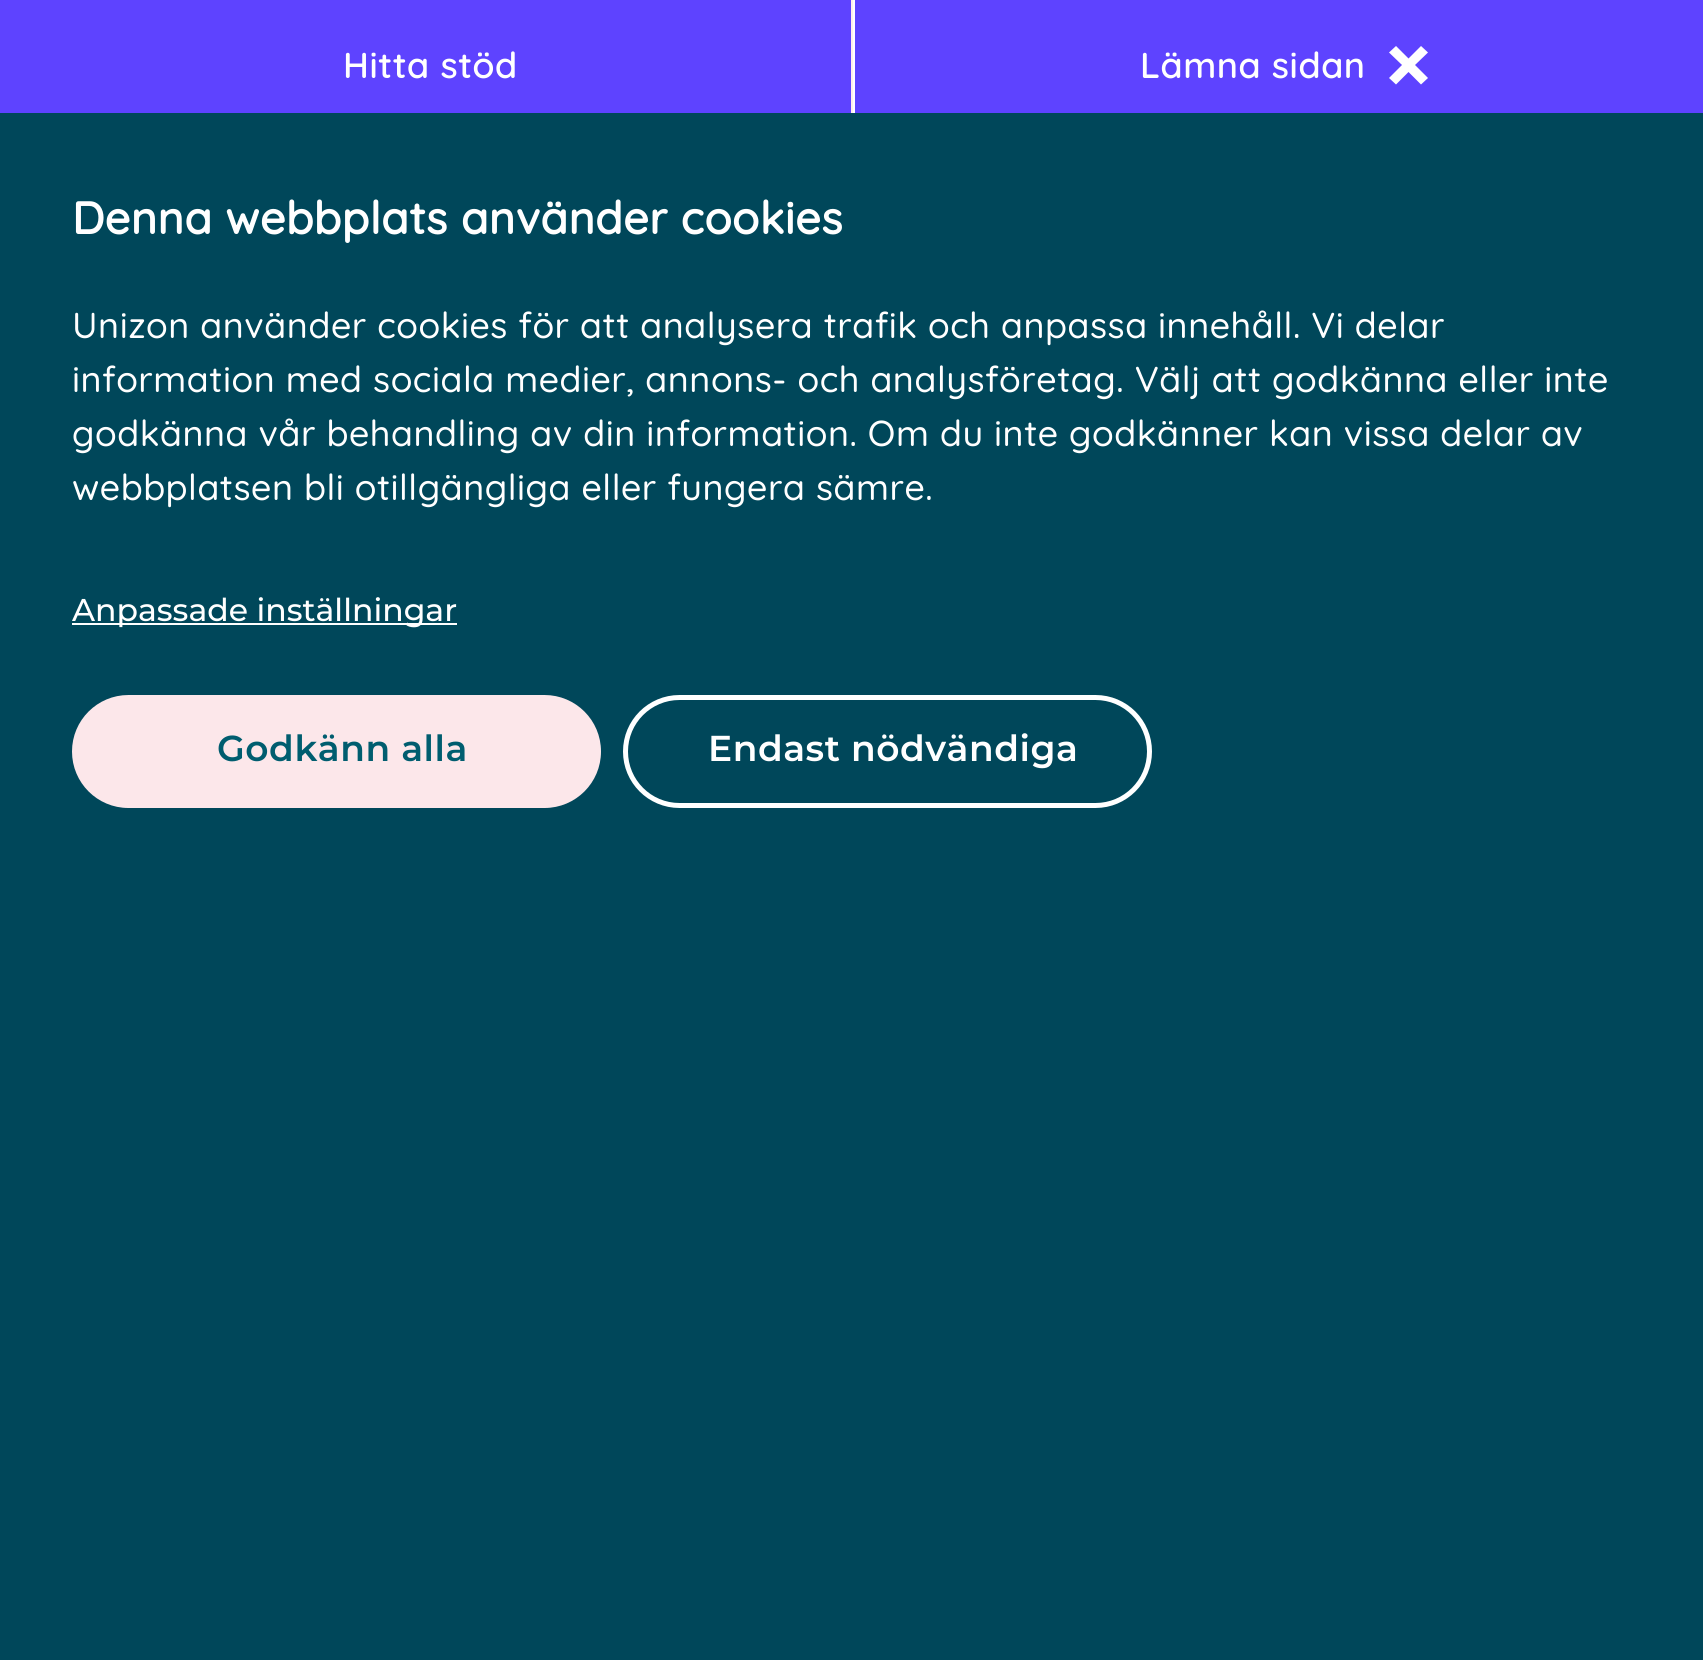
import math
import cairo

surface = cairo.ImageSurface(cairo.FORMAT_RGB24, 1703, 1660)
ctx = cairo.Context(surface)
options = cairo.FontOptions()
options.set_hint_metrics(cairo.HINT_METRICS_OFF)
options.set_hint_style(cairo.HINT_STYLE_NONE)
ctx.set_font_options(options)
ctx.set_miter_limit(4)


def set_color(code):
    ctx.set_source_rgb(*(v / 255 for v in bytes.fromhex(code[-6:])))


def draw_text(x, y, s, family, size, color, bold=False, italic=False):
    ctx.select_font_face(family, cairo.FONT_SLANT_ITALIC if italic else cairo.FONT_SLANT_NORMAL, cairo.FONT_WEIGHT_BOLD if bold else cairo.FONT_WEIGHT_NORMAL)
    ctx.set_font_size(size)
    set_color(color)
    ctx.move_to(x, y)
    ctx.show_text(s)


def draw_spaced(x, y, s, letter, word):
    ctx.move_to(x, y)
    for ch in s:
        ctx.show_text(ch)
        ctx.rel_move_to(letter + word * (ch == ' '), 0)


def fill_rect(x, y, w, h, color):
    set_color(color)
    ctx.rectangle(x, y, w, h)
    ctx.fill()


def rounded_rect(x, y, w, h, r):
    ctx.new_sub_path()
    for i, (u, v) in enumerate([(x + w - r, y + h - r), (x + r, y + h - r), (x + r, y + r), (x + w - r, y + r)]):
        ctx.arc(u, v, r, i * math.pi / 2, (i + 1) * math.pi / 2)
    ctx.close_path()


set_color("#5e43ff")
ctx.paint()
fill_rect(851, 0, 2, 113, "#ffefe9")
ctx.select_font_face("Quicksand SemiBold")
ctx.set_font_size(36)
set_color("#ffffff")
draw_spaced(343, 78, "Hitta stöd", 0.55, 0)
fill_rect(853, 0, 2, 113, "#ffffff")
draw_spaced(1140, 78, "Lämna sidan", 0.55, 0)
ctx.set_fill_rule(cairo.FILL_RULE_EVEN_ODD)
ctx.new_path()
ctx.move_to(1428, 52.5)
ctx.line_to(1415, 65)
ctx.line_to(1428, 78)
ctx.line_to(1421, 84.5)
ctx.line_to(1408.5, 72)
ctx.line_to(1396, 84.5)
ctx.line_to(1389, 78)
ctx.line_to(1402, 65)
ctx.line_to(1389, 52.5)
ctx.line_to(1396, 46)
ctx.line_to(1408.5, 58.5)
ctx.line_to(1421, 46)
ctx.close_path()
ctx.fill()
fill_rect(0, 113, 1703, 1547, "#00475a")
ctx.select_font_face("Quicksand", cairo.FONT_SLANT_NORMAL, cairo.FONT_WEIGHT_BOLD)
ctx.set_font_size(45)
set_color("#ffffff")
draw_spaced(72, 234, "Denna webbplats använder cookies", 0.55, 0)
ctx.select_font_face("Quicksand Medium")
ctx.set_font_size(36)
draw_spaced(72, 338, "Unizon använder cookies för att analysera trafik och anpassa innehåll. Vi delar", 0.55, 0)
draw_spaced(72, 392, "information med sociala medier, annons- och analysföretag. Välj att godkänna eller inte", 0.55, 0)
draw_spaced(72, 446, "godkänna vår behandling av din information. Om du inte godkänner kan vissa delar av", 0.55, 0)
draw_spaced(72, 500, "webbplatsen bli otillgängliga eller fungera sämre.", 0.55, 0)
fill_rect(72, 623, 385, 2, "#ffffff")
draw_text(72, 621, "Anpassade inställningar", "Montserrat Medium", 31.5, "#ffffff")
set_color("#fce7ea")
rounded_rect(72, 695, 529, 113, 56.5)
ctx.fill()
ctx.select_font_face("Montserrat SemiBold")
ctx.set_font_size(36)
set_color("#005d6f")
draw_spaced(217, 761, "Godkänn alla", 0.55, 0)
rounded_rect(625.5, 697.5, 524, 108, 54)
set_color("#ffffff")
ctx.set_line_width(5)
ctx.stroke()
draw_spaced(708, 761, "Endast nödvändiga", 0.55, 0)
surface.write_to_png("output.png")
